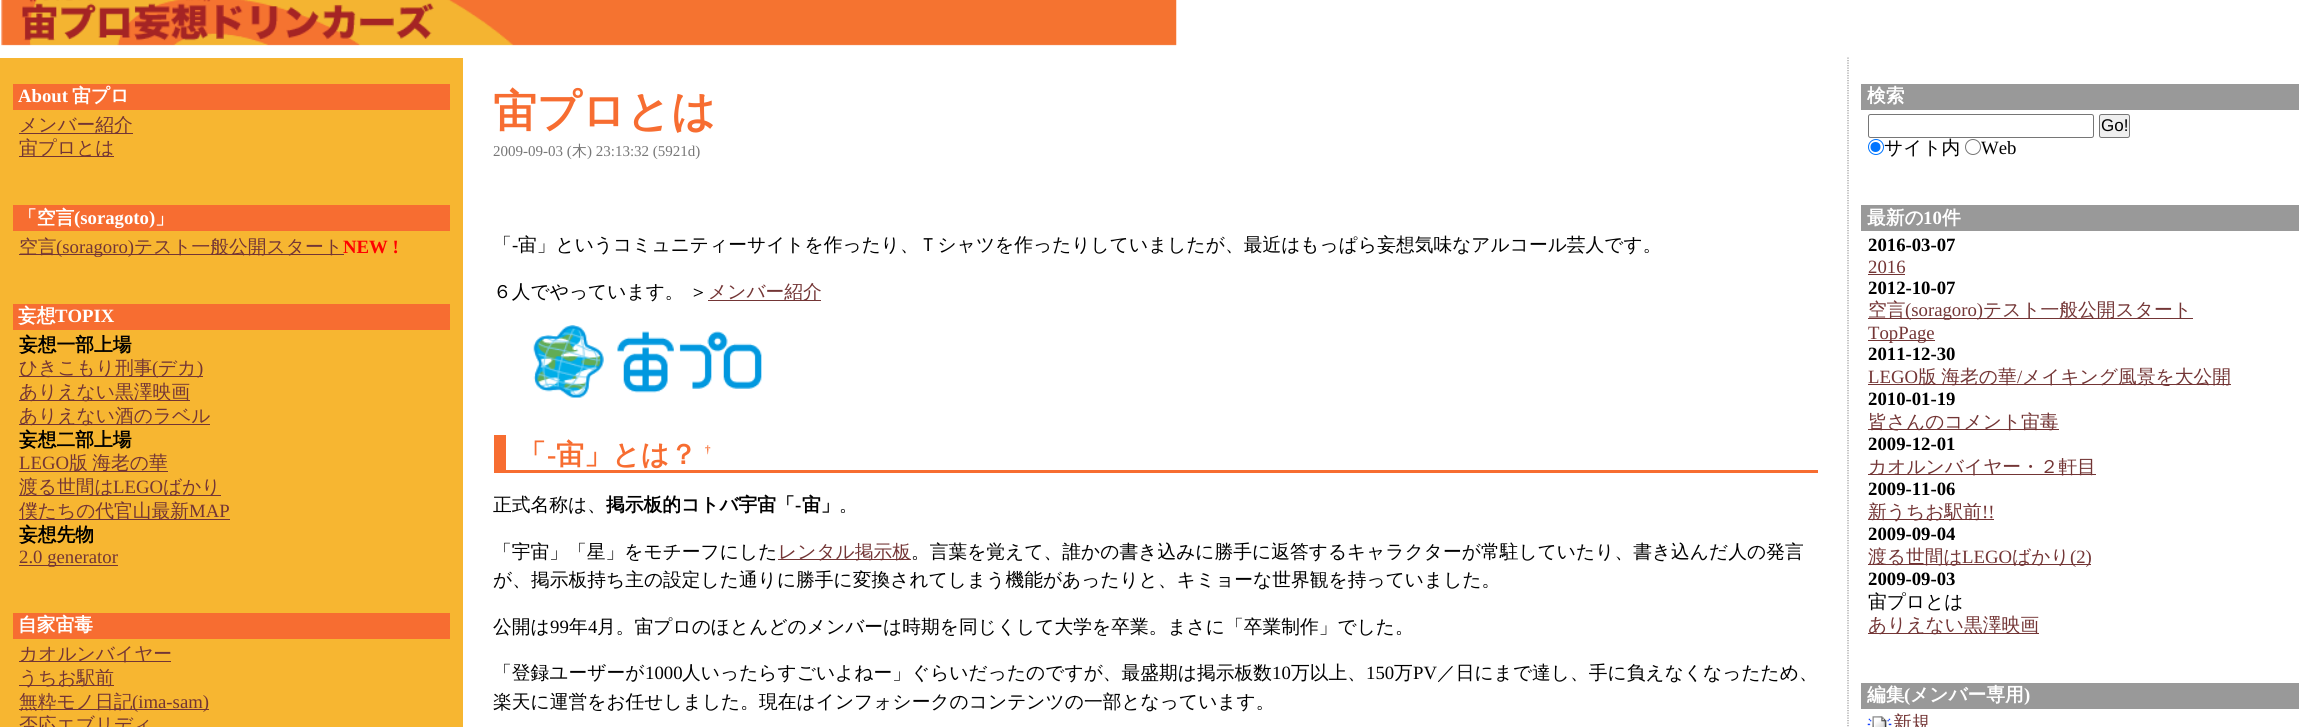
import math
import cairo

surface = cairo.ImageSurface(cairo.FORMAT_RGB24, 2311, 727)
ctx = cairo.Context(surface)
options = cairo.FontOptions()
options.set_hint_metrics(cairo.HINT_METRICS_OFF)
options.set_hint_style(cairo.HINT_STYLE_NONE)
ctx.set_font_options(options)
ctx.set_miter_limit(4)


def set_color(code):
    ctx.set_source_rgb(*(v / 255 for v in bytes.fromhex(code[-6:])))


def draw_text(x, y, s, family, size, color, bold=False, italic=False):
    ctx.select_font_face(family, cairo.FONT_SLANT_ITALIC if italic else cairo.FONT_SLANT_NORMAL, cairo.FONT_WEIGHT_BOLD if bold else cairo.FONT_WEIGHT_NORMAL)
    ctx.set_font_size(size)
    set_color(color)
    ctx.move_to(x, y)
    ctx.show_text(s)


def draw_spaced(x, y, s, letter, word):
    ctx.move_to(x, y)
    for ch in s:
        ctx.show_text(ch)
        ctx.rel_move_to(letter + word * (ch == ' '), 0)


def fill_rect(x, y, w, h, color):
    set_color(color)
    ctx.rectangle(x, y, w, h)
    ctx.fill()


def rounded_rect(x, y, w, h, r):
    ctx.new_sub_path()
    for i, (u, v) in enumerate([(x + w - r, y + h - r), (x + r, y + h - r), (x + r, y + r), (x + w - r, y + r)]):
        ctx.arc(u, v, r, i * math.pi / 2, (i + 1) * math.pi / 2)
    ctx.close_path()


def draw_image(path, x, y, w, h):
    ctx.save()
    ctx.set_source_surface(cairo.ImageSurface.create_from_png(path), x, y)
    ctx.rectangle(x, y, w, h)
    ctx.fill()
    ctx.restore()


set_color("#ffffff")
ctx.paint()
draw_image("assets/img1.png", 1, 0, 1176, 46)
fill_rect(0, 58, 463, 669, "#f7b631")
fill_rect(13, 84, 437, 26, "#f76d31")
draw_text(18, 102, "About", "Liberation Serif", 18.75, "#ffffff", bold=True)
draw_text(72, 102, "宙プロ", "WenQuanYi Zen Hei", 18.75, "#ffffff", bold=True)
fill_rect(19, 133, 114, 1, "#733535")
draw_text(19, 131, "メンバー紹介", "WenQuanYi Zen Hei Medium", 18.75, "#733535")
fill_rect(19, 156, 95, 1, "#733535")
draw_text(19, 154, "宙プロとは", "WenQuanYi Zen Hei Medium", 18.75, "#733535")
fill_rect(13, 205, 437, 26, "#f76d31")
draw_text(18, 224, "「空言", "WenQuanYi Zen Hei", 18.75, "#ffffff", bold=True)
draw_text(74, 224, "(soragoto)", "Liberation Serif", 18.75, "#ffffff", bold=True)
draw_text(155, 224, "」", "WenQuanYi Zen Hei", 18.75, "#ffffff", bold=True)
fill_rect(19, 254, 325, 1, "#733535")
draw_text(19, 253, "空言", "WenQuanYi Zen Hei Medium", 18.75, "#733535")
draw_text(56, 253, "(soragoro)", "Liberation Serif", 18.75, "#733535")
draw_text(134, 253, "テスト一般公開スタート", "WenQuanYi Zen Hei Medium", 18.75, "#733535")
draw_text(343, 253, "NEW !", "Liberation Serif", 18.75, "#ff0000", bold=True)
fill_rect(13, 304, 437, 26, "#f76d31")
draw_text(18, 322, "妄想", "WenQuanYi Zen Hei", 18.75, "#ffffff", bold=True)
draw_text(55, 322, "TOPIX", "Liberation Serif", 18.75, "#ffffff", bold=True)
draw_text(19, 351, "妄想一部上場", "WenQuanYi Zen Hei", 18.75, "#000000", bold=True)
fill_rect(19, 376, 184, 1, "#733535")
draw_text(19, 374, "ひきこもり刑事", "WenQuanYi Zen Hei Medium", 18.75, "#733535")
draw_text(152, 374, "(", "Liberation Serif", 18.75, "#733535")
draw_text(158, 374, "デカ", "WenQuanYi Zen Hei Medium", 18.75, "#733535")
draw_text(197, 374, ")", "Liberation Serif", 18.75, "#733535")
fill_rect(19, 400, 171, 1, "#733535")
draw_text(19, 398, "ありえない黒澤映画", "WenQuanYi Zen Hei Medium", 18.75, "#733535")
fill_rect(19, 424, 191, 1, "#733535")
draw_text(19, 422, "ありえない酒のラベル", "WenQuanYi Zen Hei Medium", 18.75, "#733535")
draw_text(19, 446, "妄想二部上場", "WenQuanYi Zen Hei", 18.75, "#000000", bold=True)
draw_text(19, 469, "LEGO", "Liberation Serif", 18.75, "#733535")
fill_rect(19, 471, 149, 1, "#733535")
ctx.select_font_face("WenQuanYi Zen Hei Medium")
draw_spaced(69, 469, "版 海老の華", 0, -1)
fill_rect(19, 495, 202, 1, "#733535")
draw_text(19, 493, "渡る世間は", "WenQuanYi Zen Hei Medium", 18.75, "#733535")
draw_text(113, 493, "LEGO", "Liberation Serif", 18.75, "#733535")
draw_text(163, 493, "ばかり", "WenQuanYi Zen Hei Medium", 18.75, "#733535")
fill_rect(19, 519, 211, 1, "#733535")
draw_text(19, 517, "僕たちの代官山最新", "WenQuanYi Zen Hei Medium", 18.75, "#733535")
draw_text(189, 517, "MAP", "Liberation Serif", 18.75, "#733535")
draw_text(19, 541, "妄想先物", "WenQuanYi Zen Hei", 18.75, "#000000", bold=True)
fill_rect(19, 565, 99, 1, "#733535")
draw_text(19, 563, "2.0 generator", "Liberation Serif", 18.75, "#733535")
fill_rect(13, 613, 437, 26, "#f76d31")
draw_text(18, 631, "自家宙毒", "WenQuanYi Zen Hei", 18.75, "#ffffff", bold=True)
fill_rect(19, 661, 152, 1, "#733535")
draw_text(19, 660, "カオルンバイヤー", "WenQuanYi Zen Hei Medium", 18.75, "#733535")
fill_rect(19, 685, 95, 1, "#733535")
draw_text(19, 684, "うちお駅前", "WenQuanYi Zen Hei Medium", 18.75, "#733535")
fill_rect(19, 709, 190, 1, "#733535")
draw_text(19, 708, "無粋モノ日記", "WenQuanYi Zen Hei Medium", 18.75, "#733535")
draw_text(132, 708, "(ima-sam)", "Liberation Serif", 18.75, "#733535")
draw_text(19, 731, "否応エブリディ", "WenQuanYi Zen Hei Medium", 18.75, "#733535")
draw_text(493, 126, "宙プロとは", "WenQuanYi Zen Hei", 43.75, "#f76d31", bold=True)
draw_text(493, 156, "2009-09-03 (", "Liberation Serif", 15, "#777777")
draw_text(572, 156, "木", "WenQuanYi Zen Hei Medium", 15, "#777777")
draw_text(587, 156, ") 23:13:32 (5921d)", "Liberation Serif", 15, "#777777")
draw_text(493, 251, "「", "WenQuanYi Zen Hei Medium", 18.75, "#000000")
draw_text(518, 251, "宙」というコミュニティーサイトを作ったり、Ｔシャツを作ったりしていましたが、最近はもっぱら妄想気味なアルコール芸人です。", "WenQuanYi Zen Hei Medium", 18.75, "#000000")
draw_text(512, 251, "-", "Liberation Serif", 18.75, "#000000")
draw_text(493, 298, "６人でやっています。", "WenQuanYi Zen Hei Medium", 18.75, "#000000")
draw_text(689, 298, "＞", "WenQuanYi Zen Hei Medium", 18.75, "#000000")
fill_rect(708, 300, 113, 1, "#733535")
draw_text(708, 298, "メンバー紹介", "WenQuanYi Zen Hei Medium", 18.75, "#733535")
draw_image("assets/img2.png", 533, 325, 229, 73)
fill_rect(506, 470, 1312, 3, "#f76d31")
fill_rect(494, 435, 12, 38, "#f76d31")
draw_text(518, 464, "「", "WenQuanYi Zen Hei", 28, "#f76d31", bold=True)
draw_text(556, 464, "宙」とは？", "WenQuanYi Zen Hei", 28, "#f76d31", bold=True)
draw_text(705, 453, "†", "Liberation Serif", 11, "#f76d31", bold=True)
draw_text(547, 464, "-", "Liberation Serif", 28, "#f76d31", bold=True)
draw_text(493, 511, "正式名称は、", "WenQuanYi Zen Hei Medium", 18.75, "#000000")
draw_text(606, 511, "掲示板的コトバ宇宙「", "WenQuanYi Zen Hei", 18.75, "#000000", bold=True)
draw_text(795, 511, "-", "Liberation Serif", 18.75, "#000000", bold=True)
draw_text(802, 511, "宙」", "WenQuanYi Zen Hei", 18.75, "#000000", bold=True)
draw_text(839, 511, "。", "WenQuanYi Zen Hei Medium", 18.75, "#000000")
draw_text(493, 558, "「宇宙」「星」をモチーフにした", "WenQuanYi Zen Hei Medium", 18.75, "#000000")
fill_rect(778, 559, 133, 1, "#733535")
draw_text(778, 558, "レンタル掲示板", "WenQuanYi Zen Hei Medium", 18.75, "#733535")
draw_text(911, 558, "。言葉を覚えて、誰かの書き込みに勝手に返答するキャラクターが常駐していたり、書き込んだ人の発言", "WenQuanYi Zen Hei Medium", 18.75, "#000000")
draw_text(493, 586, "が、掲示板持ち主の設定した通りに勝手に変換されてしまう機能があったりと、キミョーな世界観を持っていました。", "WenQuanYi Zen Hei Medium", 18.75, "#000000")
draw_text(493, 633, "公開は", "WenQuanYi Zen Hei Medium", 18.75, "#000000")
draw_text(550, 633, "99", "Liberation Serif", 18.75, "#000000")
draw_text(569, 633, "年", "WenQuanYi Zen Hei Medium", 18.75, "#000000")
draw_text(588, 633, "4", "Liberation Serif", 18.75, "#000000")
draw_text(597, 633, "月。宙プロのほとんどのメンバーは時期を同じくして大学を卒業。まさに「卒業制作」でした。", "WenQuanYi Zen Hei Medium", 18.75, "#000000")
draw_text(493, 679, "「登録ユーザーが", "WenQuanYi Zen Hei Medium", 18.75, "#000000")
draw_text(645, 679, "1000", "Liberation Serif", 18.75, "#000000")
draw_text(682, 679, "人いったらすごいよねー」ぐらいだったのですが、最盛期は掲示板数", "WenQuanYi Zen Hei Medium", 18.75, "#000000")
draw_text(1272, 679, "10", "Liberation Serif", 18.75, "#000000")
draw_text(1291, 679, "万以上、", "WenQuanYi Zen Hei Medium", 18.75, "#000000")
draw_text(1366, 679, "150", "Liberation Serif", 18.75, "#000000")
draw_text(1394, 679, "万", "WenQuanYi Zen Hei Medium", 18.75, "#000000")
draw_text(1413, 679, "PV", "Liberation Serif", 18.75, "#000000")
draw_text(1437, 679, "／日にまで達し、手に負えなくなったため、", "WenQuanYi Zen Hei Medium", 18.75, "#000000")
draw_text(493, 708, "楽天に運営をお任せしました。現在はインフォシークのコンテンツの一部となっています。", "WenQuanYi Zen Hei Medium", 18.75, "#000000")
ctx.new_path()
ctx.move_to(1848, 57.5)
ctx.line_to(1848, 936)
set_color("#999999")
ctx.set_line_width(1.2)
ctx.set_dash([1.25, 1.25])
ctx.stroke()
fill_rect(1861, 84, 438, 26, "#999999")
draw_text(1867, 102, "検索", "WenQuanYi Zen Hei", 18.75, "#ffffff", bold=True)
rounded_rect(1868.5, 114.5, 225, 23, 2)
set_color("#767676")
ctx.set_line_width(1)
ctx.set_dash([])
ctx.stroke()
set_color("#efefef")
rounded_rect(2099.5, 114.5, 30, 23, 2)
ctx.fill_preserve()
set_color("#767676")
ctx.stroke()
draw_text(2101, 131, "Go!", "Liberation Sans", 17, "#000000")
ctx.new_path()
ctx.arc(1876, 147, 7.5, 0, 2 * math.pi)
set_color("#0075ff")
ctx.stroke()
ctx.arc(1875.5, 147, 5, 0, 2 * math.pi)
ctx.fill()
draw_text(1884, 154, "サイト内", "WenQuanYi Zen Hei Medium", 18.75, "#000000")
ctx.new_path()
ctx.arc(1973, 147, 7.5, 0, 2 * math.pi)
set_color("#767676")
ctx.stroke()
draw_text(1981, 154, "Web", "Liberation Serif", 18.75, "#000000")
fill_rect(1861, 205, 438, 26, "#999999")
draw_text(1867, 224, "最新の", "WenQuanYi Zen Hei", 18.75, "#ffffff", bold=True)
draw_text(1923, 224, "10", "Liberation Serif", 18.75, "#ffffff", bold=True)
draw_text(1942, 224, "件", "WenQuanYi Zen Hei", 18.75, "#ffffff", bold=True)
draw_text(1868, 251, "2016-03-07", "Liberation Serif", 18.75, "#000000", bold=True)
draw_text(1868, 273, "2016", "Liberation Serif", 18.75, "#733535")
fill_rect(1868, 274, 37, 1, "#733535")
draw_text(1868, 294, "2012-10-07", "Liberation Serif", 18.75, "#000000", bold=True)
fill_rect(1868, 318, 325, 1, "#733535")
draw_text(1868, 316, "空言", "WenQuanYi Zen Hei Medium", 18.75, "#733535")
draw_text(1905, 316, "(soragoro)", "Liberation Serif", 18.75, "#733535")
draw_text(1983, 316, "テスト一般公開スタート", "WenQuanYi Zen Hei Medium", 18.75, "#733535")
fill_rect(1868, 340, 67, 1, "#733535")
draw_text(1868, 339, "TopPage", "Liberation Serif", 18.75, "#733535")
draw_text(1868, 360, "2011-12-30", "Liberation Serif", 18.75, "#000000", bold=True)
draw_text(1868, 383, "LEGO", "Liberation Serif", 18.75, "#733535")
fill_rect(1868, 384, 363, 1, "#733535")
ctx.select_font_face("WenQuanYi Zen Hei Medium")
draw_spaced(1918, 383, "版 海老の華", 0, -1)
draw_text(2017, 383, "/", "Liberation Serif", 18.75, "#733535")
draw_text(2022, 383, "メイキング風景を大公開", "WenQuanYi Zen Hei Medium", 18.75, "#733535")
draw_text(1868, 405, "2010-01-19", "Liberation Serif", 18.75, "#000000", bold=True)
fill_rect(1868, 429, 191, 1, "#733535")
draw_text(1868, 428, "皆さんのコメント宙毒", "WenQuanYi Zen Hei Medium", 18.75, "#733535")
draw_text(1868, 450, "2009-12-01", "Liberation Serif", 18.75, "#000000", bold=True)
fill_rect(1868, 474, 228, 1, "#733535")
draw_text(1868, 473, "カオルンバイヤー・２軒目", "WenQuanYi Zen Hei Medium", 18.75, "#733535")
draw_text(1868, 495, "2009-11-06", "Liberation Serif", 18.75, "#000000", bold=True)
fill_rect(1868, 519, 126, 1, "#733535")
draw_text(1868, 518, "新うちお駅前", "WenQuanYi Zen Hei Medium", 18.75, "#733535")
draw_text(1982, 518, "!!", "Liberation Serif", 18.75, "#733535")
draw_text(1868, 540, "2009-09-04", "Liberation Serif", 18.75, "#000000", bold=True)
fill_rect(1868, 564, 223, 1, "#733535")
draw_text(1868, 563, "渡る世間は", "WenQuanYi Zen Hei Medium", 18.75, "#733535")
draw_text(1962, 563, "LEGO", "Liberation Serif", 18.75, "#733535")
draw_text(2012, 563, "ばかり", "WenQuanYi Zen Hei Medium", 18.75, "#733535")
draw_text(2070, 563, "(2)", "Liberation Serif", 18.75, "#733535")
draw_text(1868, 585, "2009-09-03", "Liberation Serif", 18.75, "#000000", bold=True)
draw_text(1868, 608, "宙プロとは", "WenQuanYi Zen Hei Medium", 18.75, "#000000")
fill_rect(1868, 633, 171, 1, "#733535")
draw_text(1868, 631, "ありえない黒澤映画", "WenQuanYi Zen Hei Medium", 18.75, "#733535")
fill_rect(1861, 683, 438, 26, "#999999")
draw_text(1867, 701, "編集", "WenQuanYi Zen Hei", 18.75, "#ffffff", bold=True)
draw_text(1904, 701, "(", "Liberation Serif", 18.75, "#ffffff", bold=True)
draw_text(1910, 701, "メンバー専用", "WenQuanYi Zen Hei", 18.75, "#ffffff", bold=True)
draw_text(2024, 701, ")", "Liberation Serif", 18.75, "#ffffff", bold=True)
draw_image("assets/img3.png", 1867, 716, 25, 11)
draw_text(1893, 729, "新規", "WenQuanYi Zen Hei Medium", 18.75, "#733535")
surface.write_to_png("output.png")
